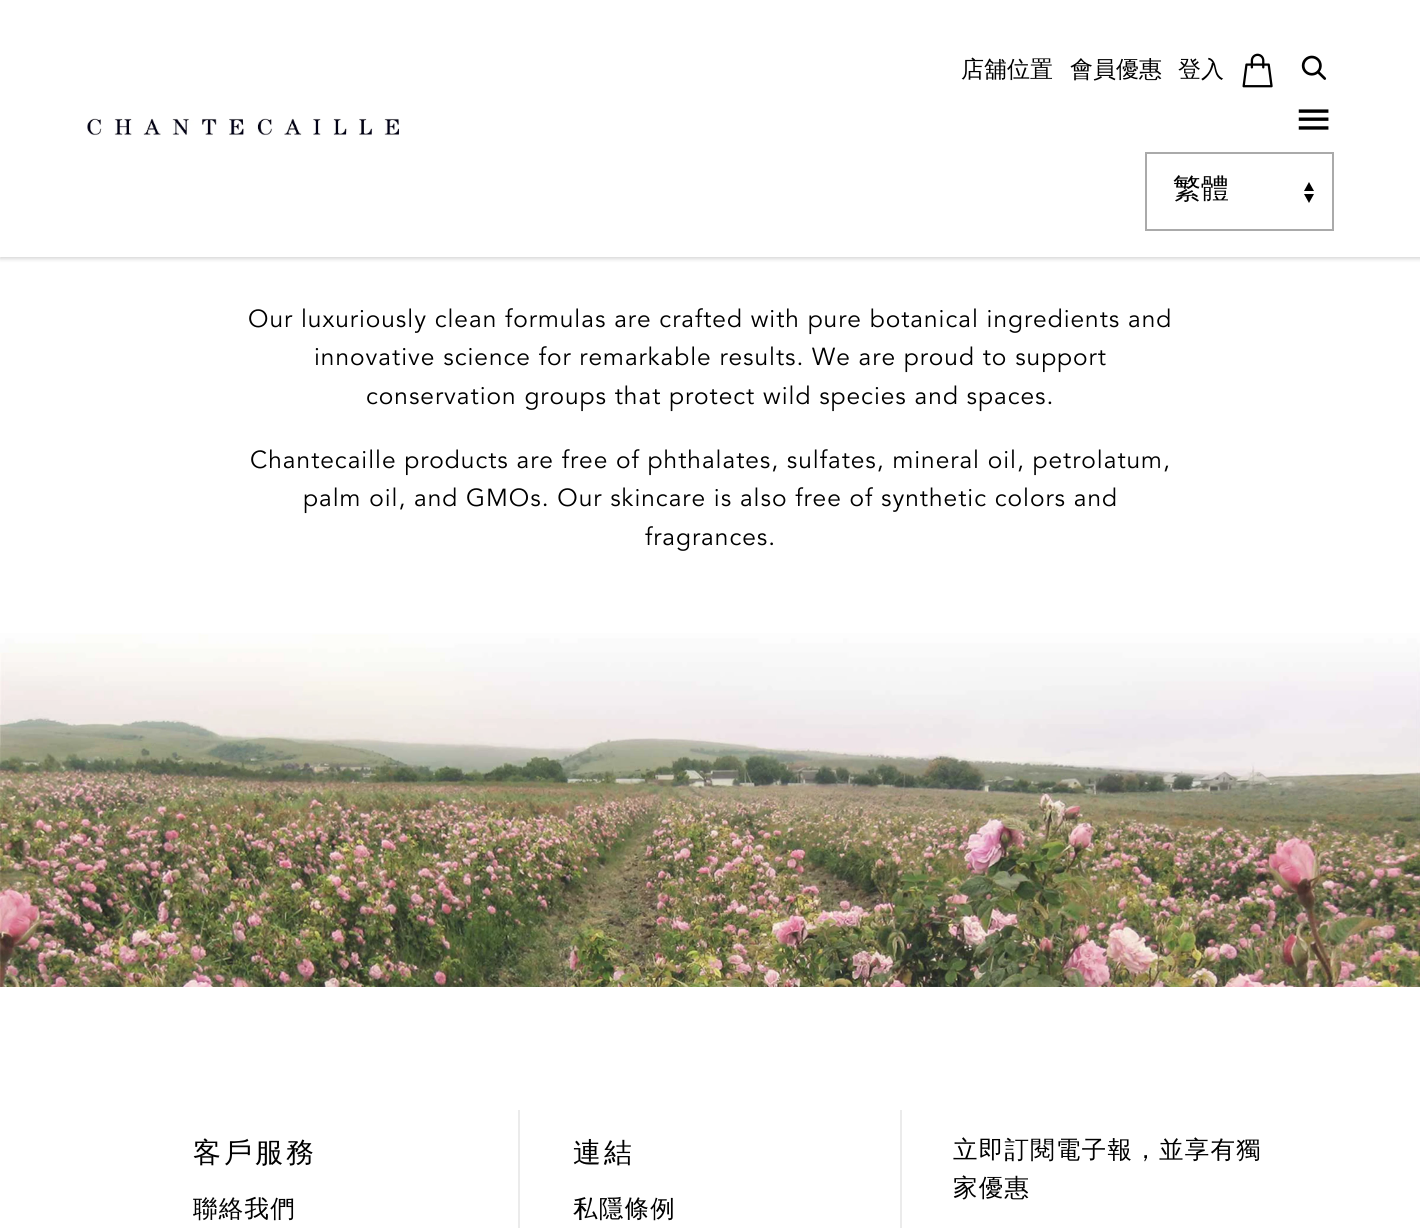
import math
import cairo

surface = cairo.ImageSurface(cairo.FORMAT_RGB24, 1420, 1228)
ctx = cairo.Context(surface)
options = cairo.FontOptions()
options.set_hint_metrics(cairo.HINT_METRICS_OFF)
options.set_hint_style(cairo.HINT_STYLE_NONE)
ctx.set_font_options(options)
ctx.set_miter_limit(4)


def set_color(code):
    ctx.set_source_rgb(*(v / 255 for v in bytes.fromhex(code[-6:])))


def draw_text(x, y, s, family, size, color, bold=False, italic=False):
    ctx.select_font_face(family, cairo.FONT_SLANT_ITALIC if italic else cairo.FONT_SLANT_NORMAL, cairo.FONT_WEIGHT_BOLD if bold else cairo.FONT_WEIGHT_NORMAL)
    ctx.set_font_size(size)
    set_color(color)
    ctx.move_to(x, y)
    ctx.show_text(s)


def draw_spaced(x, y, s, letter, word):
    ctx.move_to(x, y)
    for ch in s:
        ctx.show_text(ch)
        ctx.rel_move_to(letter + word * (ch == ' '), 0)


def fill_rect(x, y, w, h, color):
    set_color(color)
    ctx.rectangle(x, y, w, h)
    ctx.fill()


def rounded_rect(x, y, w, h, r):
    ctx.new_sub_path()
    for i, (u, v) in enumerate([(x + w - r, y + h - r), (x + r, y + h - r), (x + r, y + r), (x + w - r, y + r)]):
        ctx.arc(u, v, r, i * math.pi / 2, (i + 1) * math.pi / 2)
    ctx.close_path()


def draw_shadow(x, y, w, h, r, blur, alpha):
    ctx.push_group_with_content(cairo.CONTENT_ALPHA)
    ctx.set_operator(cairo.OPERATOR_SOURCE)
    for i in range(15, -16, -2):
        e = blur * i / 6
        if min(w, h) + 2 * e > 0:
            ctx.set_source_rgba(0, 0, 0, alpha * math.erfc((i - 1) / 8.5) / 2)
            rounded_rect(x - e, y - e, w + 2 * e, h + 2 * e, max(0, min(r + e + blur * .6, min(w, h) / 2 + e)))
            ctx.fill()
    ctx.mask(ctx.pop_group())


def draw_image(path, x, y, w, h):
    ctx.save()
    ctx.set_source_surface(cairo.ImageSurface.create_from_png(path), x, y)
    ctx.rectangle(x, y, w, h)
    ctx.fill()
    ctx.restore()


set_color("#ffffff")
ctx.paint()
set_color("#323232")
draw_shadow(0, 2, 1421, 257, 0, 2, 0.2)
fill_rect(0, 0, 1420, 257, "#ffffff")
draw_text(961, 77, "店舖位置", "WenQuanYi Zen Hei Medium", 23, "#000000")
draw_text(1070, 77, "會員優惠", "WenQuanYi Zen Hei Medium", 23, "#000000")
draw_text(1178, 77, "登入", "WenQuanYi Zen Hei Medium", 23, "#000000")
draw_image("assets/img1.png", 1242, 53, 31, 35)
draw_image("assets/img2.png", 1301, 55, 26, 25)
draw_image("assets/img3.png", 87, 118, 312, 18)
draw_image("assets/img4.png", 1298, 109, 31, 21)
ctx.new_path()
ctx.move_to(1304, 194)
ctx.line_to(1309, 203)
ctx.line_to(1314, 194)
ctx.close_path()
ctx.move_to(1314, 191)
ctx.line_to(1309, 182)
ctx.line_to(1304, 191)
ctx.close_path()
ctx.fill()
ctx.rectangle(1146, 153, 187, 77)
set_color("#aaaaaa")
ctx.stroke()
draw_text(1173, 198, "繁體", "WenQuanYi Zen Hei Medium", 28, "#000000")
ctx.select_font_face("Avenir")
ctx.set_font_size(24.5)
draw_spaced(248, 327, "Our luxuriously clean formulas are crafted with pure botanical ingredients and", 0.98, 0)
draw_spaced(314, 365, "innovative science for remarkable results. We are proud to support", 0.98, 0)
draw_spaced(366, 404, "conservation groups that protect wild species and spaces.", 0.98, 0)
draw_spaced(250, 468, "Chantecaille products are free of phthalates, sulfates, mineral oil, petrolatum,", 0.98, 0)
draw_spaced(303, 506, "palm oil, and GMOs. Our skincare is also free of synthetic colors and", 0.98, 0)
draw_spaced(645, 545, "fragrances.", 0.98, 0)
draw_image("assets/img5.png", 0, 633, 1420, 354)
fill_rect(518, 1110, 2, 118, "#ebebeb")
ctx.select_font_face("WenQuanYi Zen Hei Medium")
ctx.set_font_size(28)
set_color("#000000")
draw_spaced(193, 1162, "客戶服務", 3, 0)
ctx.set_font_size(24.5)
draw_spaced(193, 1217, "聯絡我們", 1.25, 0)
fill_rect(900, 1110, 2, 118, "#ebebeb")
ctx.set_font_size(28)
set_color("#000000")
draw_spaced(573, 1162, "連結", 3, 0)
ctx.set_font_size(24.5)
draw_spaced(573, 1217, "私隱條例", 1.25, 0)
draw_spaced(953, 1158, "立即訂閱電子報，並享有獨", 1.25, 0)
draw_spaced(953, 1196, "家優惠", 1.25, 0)
surface.write_to_png("output.png")
